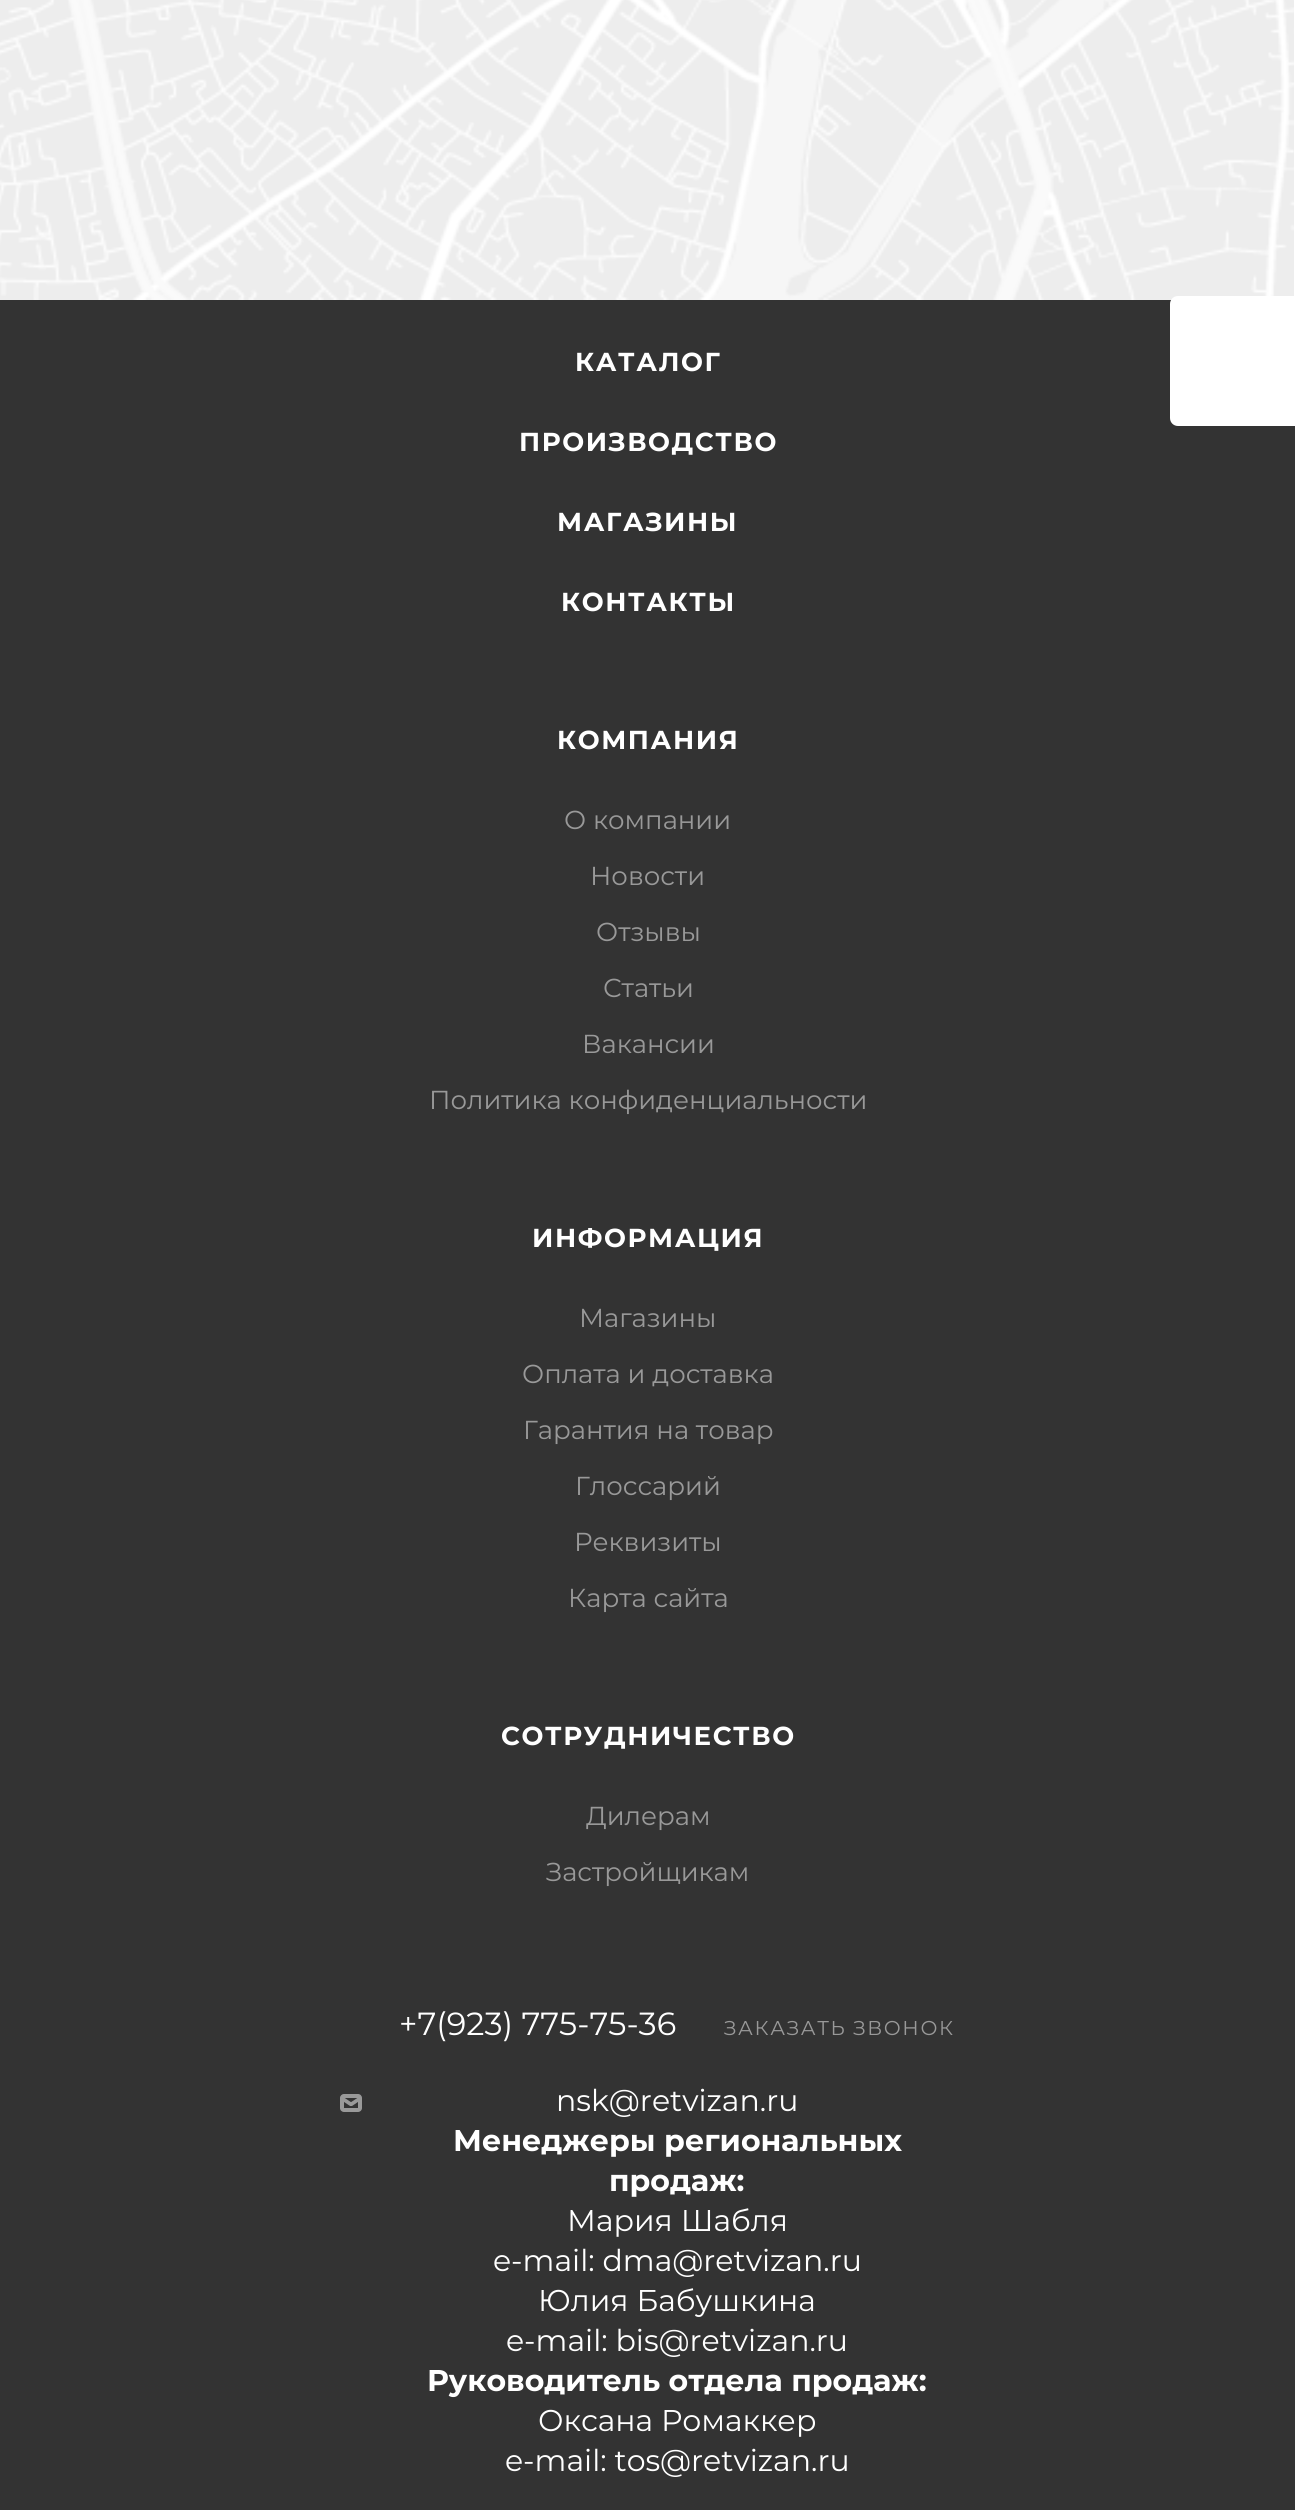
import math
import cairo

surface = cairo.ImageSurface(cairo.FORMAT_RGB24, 1295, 2510)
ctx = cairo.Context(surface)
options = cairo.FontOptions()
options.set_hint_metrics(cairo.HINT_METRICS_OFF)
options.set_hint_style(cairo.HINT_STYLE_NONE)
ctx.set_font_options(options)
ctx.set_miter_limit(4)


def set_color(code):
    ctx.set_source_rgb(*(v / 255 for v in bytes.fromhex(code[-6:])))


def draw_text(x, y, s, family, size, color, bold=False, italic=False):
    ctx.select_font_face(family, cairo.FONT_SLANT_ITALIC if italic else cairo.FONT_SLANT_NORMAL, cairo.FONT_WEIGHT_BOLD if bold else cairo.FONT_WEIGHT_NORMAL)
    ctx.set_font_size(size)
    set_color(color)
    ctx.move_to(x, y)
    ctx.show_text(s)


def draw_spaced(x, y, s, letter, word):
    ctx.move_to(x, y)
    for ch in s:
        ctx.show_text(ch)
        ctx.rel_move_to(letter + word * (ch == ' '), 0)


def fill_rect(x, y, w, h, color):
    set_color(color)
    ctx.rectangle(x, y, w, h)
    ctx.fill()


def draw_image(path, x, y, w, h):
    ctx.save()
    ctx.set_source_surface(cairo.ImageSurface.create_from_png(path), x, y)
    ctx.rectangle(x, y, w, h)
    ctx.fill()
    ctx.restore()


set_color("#ffffff")
ctx.paint()
draw_image("assets/img1.png", 0, 0, 1294, 300)
fill_rect(0, 300, 1295, 2210, "#333333")
ctx.select_font_face("Montserrat", cairo.FONT_SLANT_NORMAL, cairo.FONT_WEIGHT_BOLD)
ctx.set_font_size(26)
set_color("#ffffff")
draw_spaced(575, 371, "КАТАЛОГ", 1.6, 0)
draw_spaced(519, 451, "ПРОИЗВОДСТВО", 1.6, 0)
draw_spaced(557, 531, "МАГАЗИНЫ", 1.6, 0)
draw_spaced(561, 611, "КОНТАКТЫ", 1.6, 0)
draw_spaced(557, 749, "КОМПАНИЯ", 1.6, 0)
draw_text(564, 829, "О компании", "Montserrat", 26, "#999999")
draw_text(590, 885, "Новости", "Montserrat", 26, "#999999")
draw_text(596, 941, "Отзывы", "Montserrat", 26, "#999999")
draw_text(603, 997, "Статьи", "Montserrat", 26, "#999999")
draw_text(582, 1053, "Вакансии", "Montserrat", 26, "#999999")
draw_text(429, 1109, "Политика конфиденциальности", "Montserrat", 26, "#999999")
ctx.select_font_face("Montserrat", cairo.FONT_SLANT_NORMAL, cairo.FONT_WEIGHT_BOLD)
set_color("#ffffff")
draw_spaced(532, 1247, "ИНФОРМАЦИЯ", 1.6, 0)
draw_text(579, 1327, "Магазины", "Montserrat", 26, "#999999")
draw_text(522, 1383, "Оплата и доставка", "Montserrat", 26, "#999999")
draw_text(523, 1439, "Гарантия на товар", "Montserrat", 26, "#999999")
draw_text(575, 1495, "Глоссарий", "Montserrat", 26, "#999999")
draw_text(574, 1551, "Реквизиты", "Montserrat", 26, "#999999")
draw_text(568, 1607, "Карта сайта", "Montserrat", 26, "#999999")
ctx.select_font_face("Montserrat", cairo.FONT_SLANT_NORMAL, cairo.FONT_WEIGHT_BOLD)
set_color("#ffffff")
draw_spaced(501, 1745, "СОТРУДНИЧЕСТВО", 1.6, 0)
draw_text(586, 1825, "Дилерам", "Montserrat", 26, "#999999")
draw_text(546, 1881, "Застройщикам", "Montserrat", 26, "#999999")
draw_text(399, 2035, "+7(923) 775-75-36", "Montserrat", 32, "#ffffff")
ctx.set_font_size(20)
set_color("#999999")
draw_spaced(724, 2035, "ЗАКАЗАТЬ ЗВОНОК", 1.6, 0)
draw_image("assets/img2.png", 340, 2094, 22, 18)
draw_text(556, 2111, "nsk@retvizan.ru", "Montserrat", 30, "#ffffff")
draw_text(453, 2151, "Менеджеры региональных", "Montserrat", 30, "#ffffff", bold=True)
draw_text(609, 2191, "продаж:", "Montserrat", 30, "#ffffff", bold=True)
draw_text(567, 2231, "Мария Шабля", "Montserrat", 30, "#ffffff")
draw_text(493, 2271, "e-mail: dma@retvizan.ru", "Montserrat", 30, "#ffffff")
draw_text(538, 2311, "Юлия Бабушкина", "Montserrat", 30, "#ffffff")
draw_text(506, 2351, "e-mail: bis@retvizan.ru", "Montserrat", 30, "#ffffff")
draw_text(427, 2391, "Руководитель отдела продаж:", "Montserrat", 30, "#ffffff", bold=True)
draw_text(538, 2431, "Оксана Ромаккер", "Montserrat", 30, "#ffffff")
draw_text(505, 2471, "e-mail: tos@retvizan.ru", "Montserrat", 30, "#ffffff")
ctx.new_path()
ctx.move_to(1178, 296)
ctx.line_to(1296, 296)
ctx.line_to(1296, 426)
ctx.line_to(1178, 426)
ctx.curve_to(1173.5, 426, 1170, 422.5, 1170, 418)
ctx.line_to(1170, 304)
ctx.curve_to(1170, 299.5, 1173.5, 296, 1178, 296)
ctx.close_path()
ctx.fill()
surface.write_to_png("output.png")
